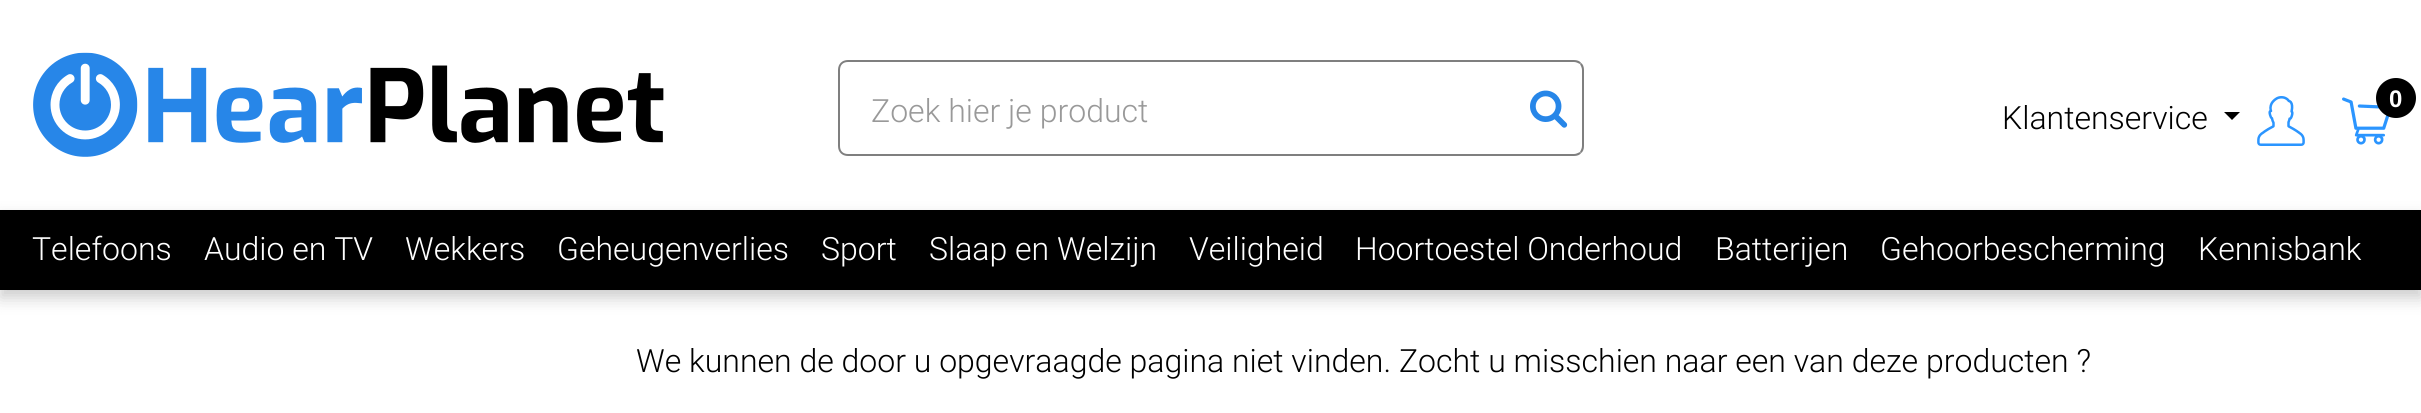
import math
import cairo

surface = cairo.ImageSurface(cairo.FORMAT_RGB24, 2421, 413)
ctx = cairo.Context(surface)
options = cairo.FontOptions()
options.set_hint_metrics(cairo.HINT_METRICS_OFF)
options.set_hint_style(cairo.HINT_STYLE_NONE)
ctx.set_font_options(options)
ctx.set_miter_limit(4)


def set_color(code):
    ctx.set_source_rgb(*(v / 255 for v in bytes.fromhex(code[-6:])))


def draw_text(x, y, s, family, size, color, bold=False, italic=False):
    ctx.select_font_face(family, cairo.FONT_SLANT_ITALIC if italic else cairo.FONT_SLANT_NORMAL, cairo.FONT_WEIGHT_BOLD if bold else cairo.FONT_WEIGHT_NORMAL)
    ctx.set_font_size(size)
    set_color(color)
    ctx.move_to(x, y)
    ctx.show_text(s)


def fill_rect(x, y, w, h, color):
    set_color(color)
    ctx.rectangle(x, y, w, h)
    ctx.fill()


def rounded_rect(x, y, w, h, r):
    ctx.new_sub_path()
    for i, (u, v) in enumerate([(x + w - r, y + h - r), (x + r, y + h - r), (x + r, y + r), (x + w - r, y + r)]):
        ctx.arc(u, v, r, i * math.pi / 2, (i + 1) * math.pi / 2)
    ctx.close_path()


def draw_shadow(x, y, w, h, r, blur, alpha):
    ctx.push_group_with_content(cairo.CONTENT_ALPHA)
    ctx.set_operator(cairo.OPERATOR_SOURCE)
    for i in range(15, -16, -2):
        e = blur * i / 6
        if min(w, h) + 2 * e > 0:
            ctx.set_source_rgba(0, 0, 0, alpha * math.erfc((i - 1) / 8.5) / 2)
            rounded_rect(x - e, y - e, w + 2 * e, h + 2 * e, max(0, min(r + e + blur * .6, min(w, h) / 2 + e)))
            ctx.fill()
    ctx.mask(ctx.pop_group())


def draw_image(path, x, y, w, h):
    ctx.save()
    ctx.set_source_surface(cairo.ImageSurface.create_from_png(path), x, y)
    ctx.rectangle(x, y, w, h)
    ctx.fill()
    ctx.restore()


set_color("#ffffff")
ctx.paint()
draw_image("assets/img1.png", 33, 52, 631, 105)
set_color("#7f7f7f")
ctx.set_fill_rule(cairo.FILL_RULE_EVEN_ODD)
ctx.new_path()
ctx.move_to(848, 60)
ctx.line_to(1514, 60)
ctx.line_to(1514, 156)
ctx.line_to(848, 156)
ctx.curve_to(842, 156, 838, 152, 838, 146)
ctx.line_to(838, 70)
ctx.curve_to(838, 64, 842, 60, 848, 60)
ctx.close_path()
ctx.move_to(848, 62)
ctx.line_to(1514, 62)
ctx.line_to(1514, 154)
ctx.line_to(848, 154)
ctx.curve_to(843, 154, 840, 151, 840, 146)
ctx.line_to(840, 70)
ctx.curve_to(840, 65, 843, 62, 848, 62)
ctx.close_path()
ctx.fill()
draw_text(871, 122, "Zoek hier je product", "Roboto Light", 32, "#999999")
set_color("#7f7f7f")
ctx.set_fill_rule(cairo.FILL_RULE_WINDING)
ctx.new_path()
ctx.move_to(1512, 60)
ctx.line_to(1514, 62)
ctx.line_to(1574, 62)
ctx.curve_to(1576, 62, 1578, 63, 1580, 64)
ctx.line_to(1581, 63)
ctx.curve_to(1580, 61, 1577, 60, 1574, 60)
ctx.close_path()
ctx.fill()
ctx.new_path()
ctx.move_to(1584, 146)
ctx.line_to(1584, 70)
ctx.curve_to(1584, 67, 1583, 64, 1581, 63)
ctx.line_to(1580, 64)
ctx.curve_to(1581, 66, 1582, 68, 1582, 70)
ctx.line_to(1582, 146)
ctx.curve_to(1582, 148, 1581, 150, 1580, 152)
ctx.line_to(1581, 153)
ctx.curve_to(1583, 152, 1584, 149, 1584, 146)
ctx.close_path()
ctx.fill()
ctx.new_path()
ctx.move_to(1574, 156)
ctx.curve_to(1577, 156, 1580, 155, 1581, 153)
ctx.line_to(1580, 152)
ctx.curve_to(1578, 153, 1576, 154, 1574, 154)
ctx.line_to(1514, 154)
ctx.line_to(1512, 156)
ctx.close_path()
ctx.fill()
draw_image("assets/img2.png", 1530, 90, 38, 38)
draw_text(2002, 129, "Klantenservice", "Roboto Light", 32, "#000000")
ctx.new_path()
ctx.move_to(2224, 112)
ctx.line_to(2240, 112)
ctx.line_to(2232, 120)
ctx.close_path()
ctx.fill()
draw_image("assets/img3.png", 2257, 96, 48, 50)
draw_image("assets/img4.png", 2342, 97, 48, 48)
ctx.arc(2396, 98, 20, 0, 2 * math.pi)
ctx.fill()
draw_text(2389, 107, "0", "Liberation Sans", 24, "#ffffff", bold=True)
set_color("#000000")
draw_shadow(0, 218, 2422, 80, 0, 8, 0.2)
fill_rect(0, 210, 2421, 80, "#000000")
draw_text(32, 260, "Telefoons", "Roboto Light", 32, "#ffffff")
draw_text(204, 260, "Audio en TV", "Roboto Light", 32, "#ffffff")
draw_text(405, 260, "Wekkers", "Roboto Light", 32, "#ffffff")
draw_text(557, 260, "Geheugenverlies", "Roboto Light", 32, "#ffffff")
draw_text(821, 260, "Sport", "Roboto Light", 32, "#ffffff")
draw_text(929, 260, "Slaap en Welzijn", "Roboto Light", 32, "#ffffff")
draw_text(1189, 260, "Veiligheid", "Roboto Light", 32, "#ffffff")
draw_text(1355, 260, "Hoortoestel Onderhoud", "Roboto Light", 32, "#ffffff")
draw_text(1715, 260, "Batterijen", "Roboto Light", 32, "#ffffff")
draw_text(1880, 260, "Gehoorbescherming", "Roboto Light", 32, "#ffffff")
draw_text(2198, 260, "Kennisbank", "Roboto Light", 32, "#ffffff")
draw_text(636, 372, "We kunnen de door u opgevraagde pagina niet vinden. Zocht u misschien naar een van deze producten ?", "Roboto Light", 32, "#000000")
surface.write_to_png("output.png")
